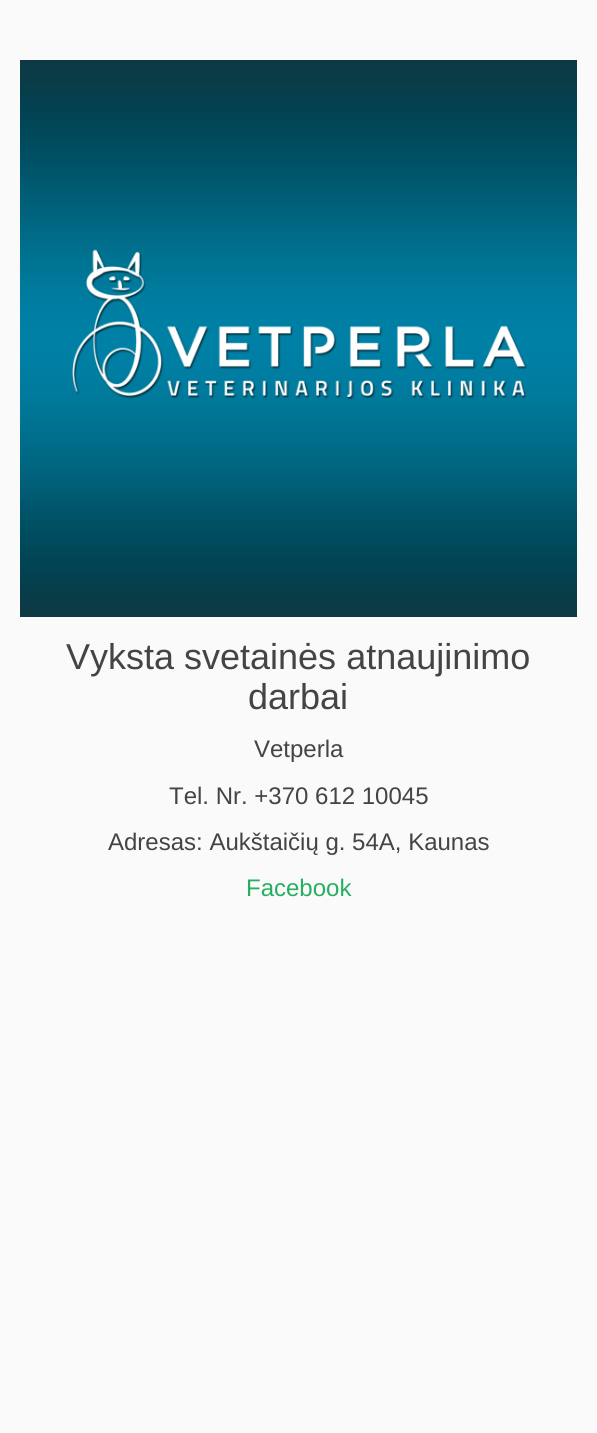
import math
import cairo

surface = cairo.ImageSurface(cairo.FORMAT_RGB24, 597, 1433)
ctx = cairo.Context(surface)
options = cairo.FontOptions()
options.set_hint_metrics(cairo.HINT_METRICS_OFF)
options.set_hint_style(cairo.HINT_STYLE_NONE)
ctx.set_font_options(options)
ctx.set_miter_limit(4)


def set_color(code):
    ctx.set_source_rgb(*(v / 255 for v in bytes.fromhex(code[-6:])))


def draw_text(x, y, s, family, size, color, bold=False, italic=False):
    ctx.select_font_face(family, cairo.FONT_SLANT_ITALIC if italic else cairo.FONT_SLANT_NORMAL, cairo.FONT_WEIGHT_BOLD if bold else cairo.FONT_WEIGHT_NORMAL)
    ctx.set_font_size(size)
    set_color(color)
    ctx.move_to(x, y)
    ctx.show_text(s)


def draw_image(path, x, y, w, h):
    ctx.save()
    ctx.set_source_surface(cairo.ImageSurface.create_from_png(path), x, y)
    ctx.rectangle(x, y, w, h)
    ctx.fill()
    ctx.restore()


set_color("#fafafa")
ctx.paint()
draw_image("assets/img1.png", 20, 60, 557, 557)
draw_text(66, 669, "Vyksta svetainės atnaujinimo", "Liberation Sans", 36, "#444444")
draw_text(248, 709, "darbai", "Liberation Sans", 36, "#444444")
draw_text(254, 757, "Vetperla", "Liberation Sans", 24, "#444444")
draw_text(169, 804, "Tel. Nr. +370 612 10045", "Liberation Sans", 24, "#444444")
draw_text(108, 850, "Adresas: Aukštaičių g. 54A, Kaunas", "Liberation Sans", 24, "#444444")
draw_text(246, 896, "Facebook", "Liberation Sans", 24, "#27ae60")
surface.write_to_png("output.png")
